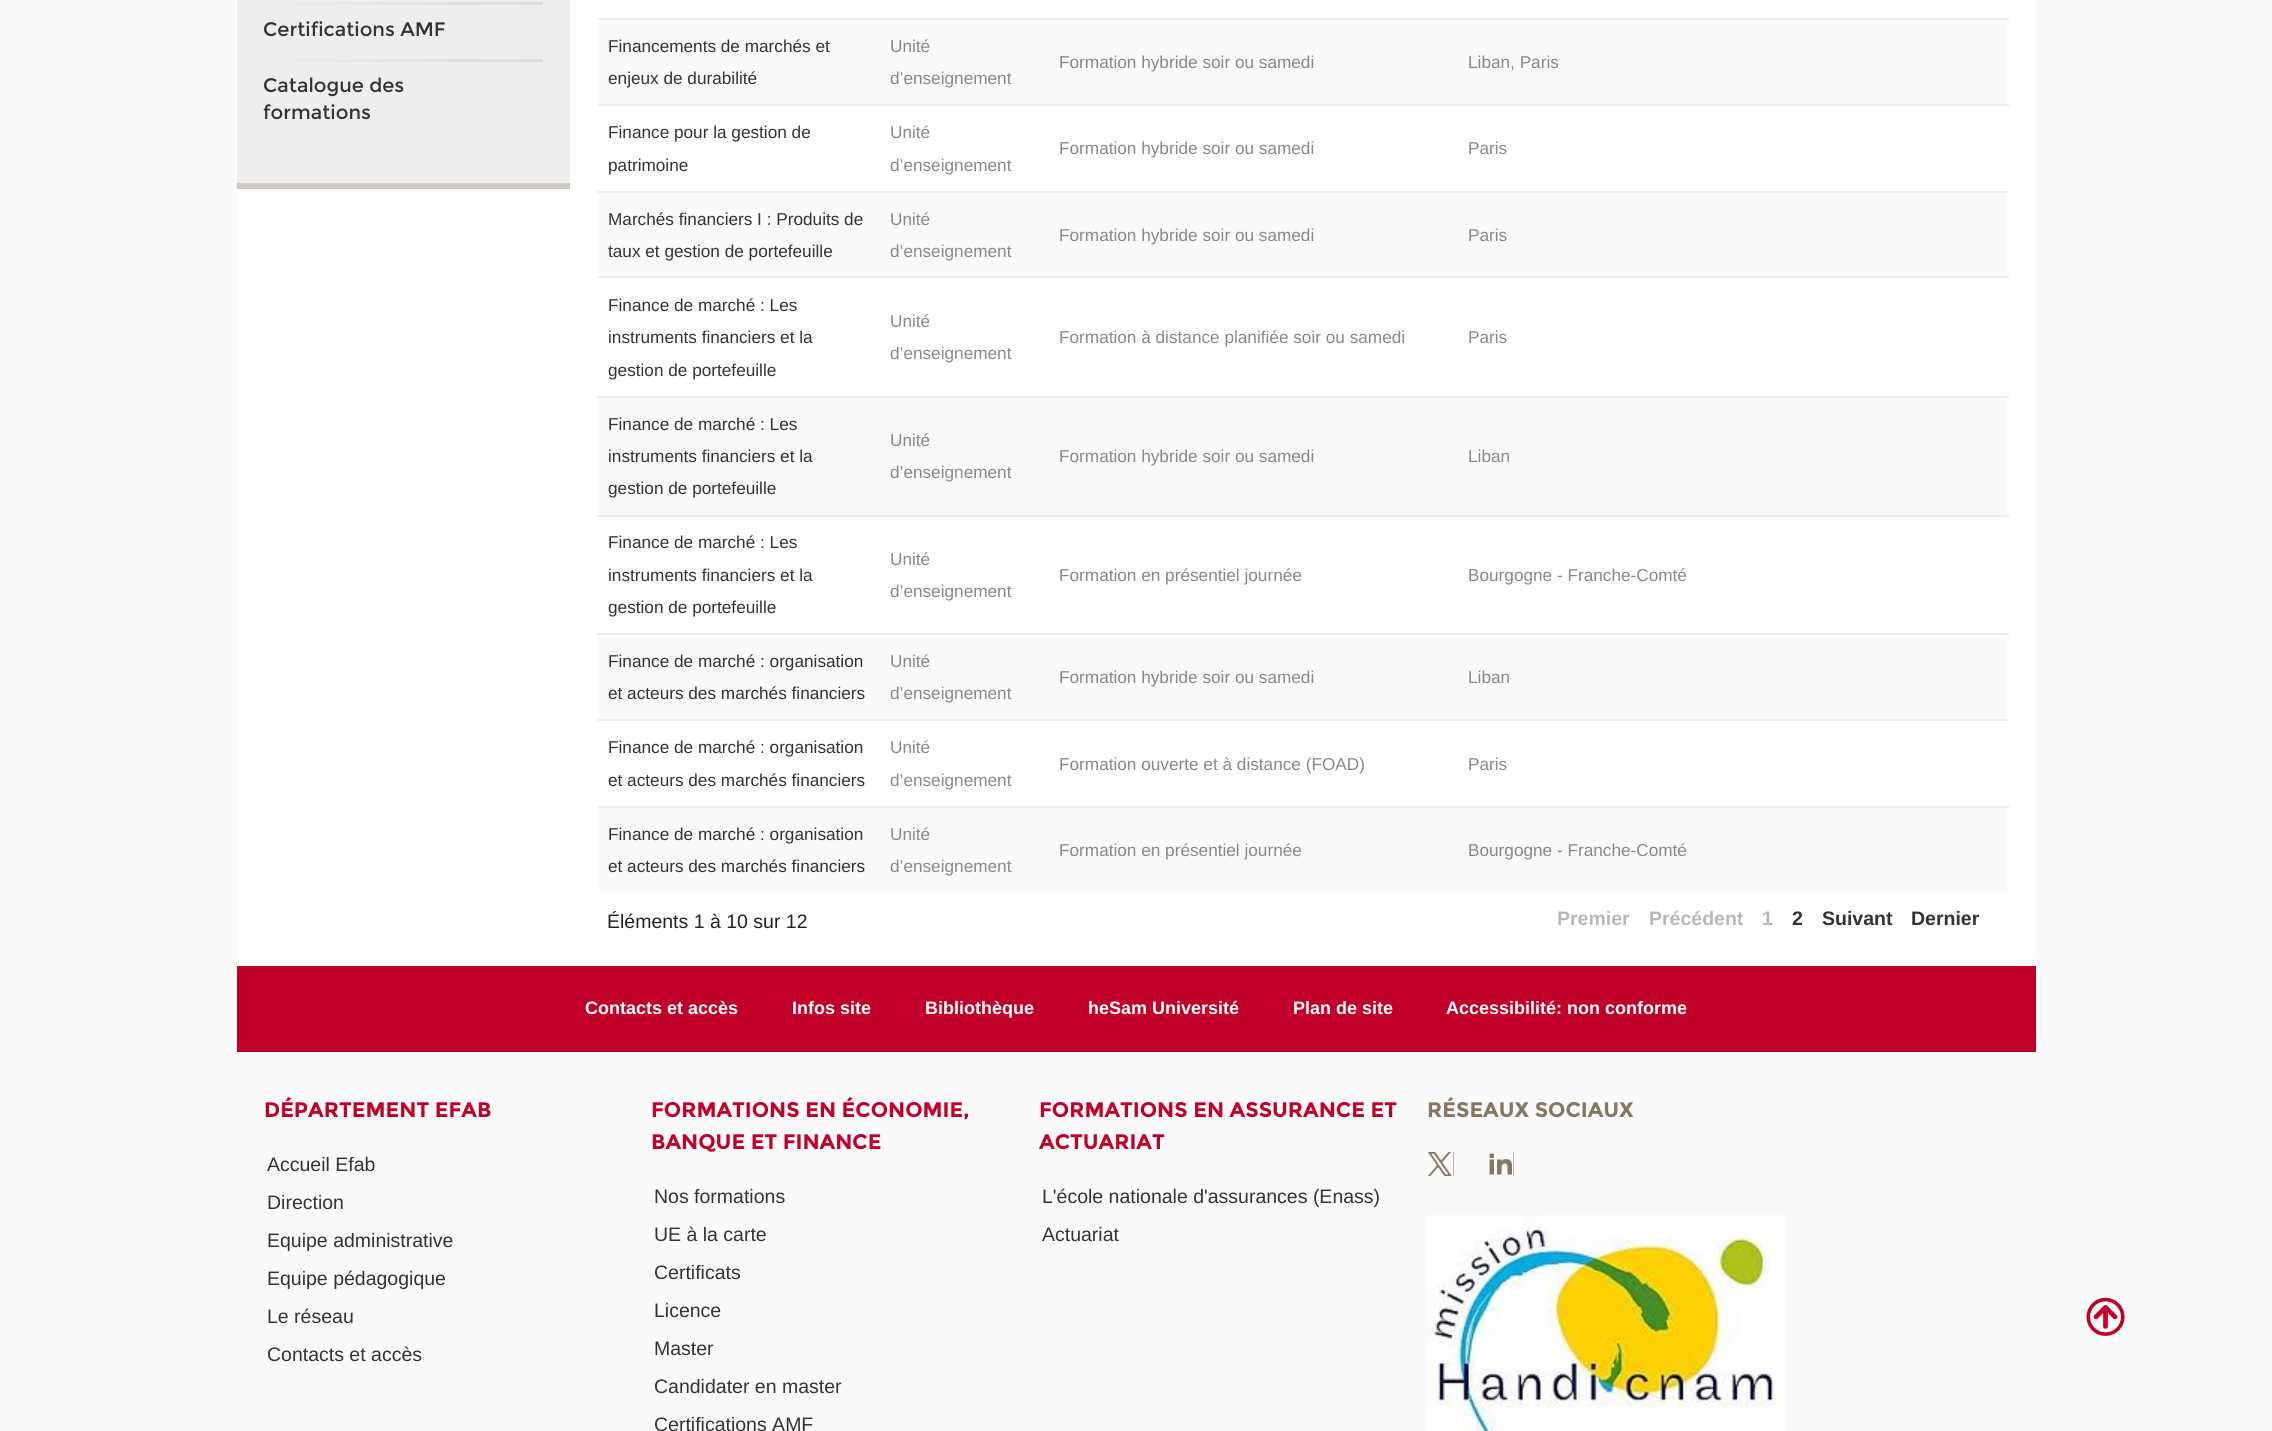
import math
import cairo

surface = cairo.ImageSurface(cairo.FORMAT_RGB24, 2272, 1431)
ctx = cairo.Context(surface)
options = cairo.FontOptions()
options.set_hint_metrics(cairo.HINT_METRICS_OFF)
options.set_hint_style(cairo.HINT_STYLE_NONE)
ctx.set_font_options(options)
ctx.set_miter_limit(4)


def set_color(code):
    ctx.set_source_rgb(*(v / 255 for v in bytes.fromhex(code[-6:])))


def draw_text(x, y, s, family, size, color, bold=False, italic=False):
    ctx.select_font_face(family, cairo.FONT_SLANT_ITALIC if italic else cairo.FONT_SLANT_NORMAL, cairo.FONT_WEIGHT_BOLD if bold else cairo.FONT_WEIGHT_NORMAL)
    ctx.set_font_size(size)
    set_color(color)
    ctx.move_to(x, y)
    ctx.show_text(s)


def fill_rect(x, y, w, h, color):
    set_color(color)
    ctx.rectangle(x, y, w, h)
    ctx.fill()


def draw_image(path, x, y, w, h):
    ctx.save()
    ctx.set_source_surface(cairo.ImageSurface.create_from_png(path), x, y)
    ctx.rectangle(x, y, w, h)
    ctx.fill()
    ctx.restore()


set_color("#fafafa")
ctx.paint()
fill_rect(237, 0, 1799, 966, "#ffffff")
fill_rect(237, 0, 333, 183, "#eeeeee")
fill_rect(237, 183, 333, 6, "#cfc8c0")
gradient = cairo.LinearGradient(263, 3, 543, 3)
gradient.add_color_stop_rgba(0, 0.933, 0.933, 0.933, 1)
gradient.add_color_stop_rgba(1, 0.855, 0.855, 0.855, 1)
ctx.set_source(gradient)
ctx.rectangle(298, 2, 245, 3)
ctx.fill()
draw_text(263, 36, "Certifications AMF", "Montserrat", 19.5, "#333333")
gradient = cairo.LinearGradient(263, 60, 543, 60)
gradient.add_color_stop_rgba(0, 0.933, 0.933, 0.933, 1)
gradient.add_color_stop_rgba(1, 0.855, 0.855, 0.855, 1)
ctx.set_source(gradient)
ctx.rectangle(298, 59, 245, 3)
ctx.fill()
draw_text(263, 92, "Catalogue des", "Montserrat", 19.5, "#333333")
draw_text(263, 119, "formations", "Montserrat", 19.5, "#333333")
fill_rect(597, 18, 1412, 2, "#eeeeee")
fill_rect(599, 20, 1408, 84, "#fafafa")
draw_text(608, 52, "Financements de marchés et", "Liberation Sans", 17.2, "#333333")
draw_text(608, 84, "enjeux de durabilité", "Liberation Sans", 17.2, "#333333")
draw_text(890, 52, "Unité", "Liberation Sans", 17.2, "#888888")
draw_text(890, 84, "d’enseignement", "Liberation Sans", 17.2, "#888888")
draw_text(1059, 68, "Formation hybride soir ou samedi", "Liberation Sans", 17.2, "#888888")
draw_text(1468, 68, "Liban, Paris", "Liberation Sans", 17.2, "#888888")
fill_rect(597, 104, 1412, 2, "#eeeeee")
draw_text(608, 138, "Finance pour la gestion de", "Liberation Sans", 17.2, "#333333")
draw_text(608, 171, "patrimoine", "Liberation Sans", 17.2, "#333333")
draw_text(890, 138, "Unité", "Liberation Sans", 17.2, "#888888")
draw_text(890, 171, "d’enseignement", "Liberation Sans", 17.2, "#888888")
draw_text(1059, 154, "Formation hybride soir ou samedi", "Liberation Sans", 17.2, "#888888")
draw_text(1468, 154, "Paris", "Liberation Sans", 17.2, "#888888")
fill_rect(597, 191, 1412, 2, "#eeeeee")
fill_rect(599, 193, 1408, 83, "#fafafa")
draw_text(608, 225, "Marchés financiers I : Produits de", "Liberation Sans", 17.2, "#333333")
draw_text(608, 257, "taux et gestion de portefeuille", "Liberation Sans", 17.2, "#333333")
draw_text(890, 225, "Unité", "Liberation Sans", 17.2, "#888888")
draw_text(890, 257, "d’enseignement", "Liberation Sans", 17.2, "#888888")
draw_text(1059, 241, "Formation hybride soir ou samedi", "Liberation Sans", 17.2, "#888888")
draw_text(1468, 241, "Paris", "Liberation Sans", 17.2, "#888888")
fill_rect(597, 276, 1412, 2, "#eeeeee")
draw_text(608, 311, "Finance de marché : Les", "Liberation Sans", 17.2, "#333333")
draw_text(608, 343, "instruments financiers et la", "Liberation Sans", 17.2, "#333333")
draw_text(608, 376, "gestion de portefeuille", "Liberation Sans", 17.2, "#333333")
draw_text(890, 327, "Unité", "Liberation Sans", 17.2, "#888888")
draw_text(890, 359, "d’enseignement", "Liberation Sans", 17.2, "#888888")
draw_text(1059, 343, "Formation à distance planifiée soir ou samedi", "Liberation Sans", 17.2, "#888888")
draw_text(1468, 343, "Paris", "Liberation Sans", 17.2, "#888888")
fill_rect(597, 396, 1412, 2, "#eeeeee")
fill_rect(599, 398, 1408, 117, "#fafafa")
draw_text(608, 430, "Finance de marché : Les", "Liberation Sans", 17.2, "#333333")
draw_text(608, 462, "instruments financiers et la", "Liberation Sans", 17.2, "#333333")
draw_text(608, 494, "gestion de portefeuille", "Liberation Sans", 17.2, "#333333")
draw_text(890, 446, "Unité", "Liberation Sans", 17.2, "#888888")
draw_text(890, 478, "d’enseignement", "Liberation Sans", 17.2, "#888888")
draw_text(1059, 462, "Formation hybride soir ou samedi", "Liberation Sans", 17.2, "#888888")
draw_text(1468, 462, "Liban", "Liberation Sans", 17.2, "#888888")
fill_rect(597, 515, 1412, 2, "#eeeeee")
draw_text(608, 548, "Finance de marché : Les", "Liberation Sans", 17.2, "#333333")
draw_text(608, 581, "instruments financiers et la", "Liberation Sans", 17.2, "#333333")
draw_text(608, 613, "gestion de portefeuille", "Liberation Sans", 17.2, "#333333")
draw_text(890, 565, "Unité", "Liberation Sans", 17.2, "#888888")
draw_text(890, 597, "d’enseignement", "Liberation Sans", 17.2, "#888888")
draw_text(1059, 581, "Formation en présentiel journée", "Liberation Sans", 17.2, "#888888")
draw_text(1468, 581, "Bourgogne - Franche-Comté", "Liberation Sans", 17.2, "#888888")
fill_rect(597, 633, 1412, 2, "#eeeeee")
fill_rect(599, 635, 1408, 84, "#fafafa")
draw_text(608, 667, "Finance de marché : organisation", "Liberation Sans", 17.2, "#333333")
draw_text(608, 699, "et acteurs des marchés financiers", "Liberation Sans", 17.2, "#333333")
draw_text(890, 667, "Unité", "Liberation Sans", 17.2, "#888888")
draw_text(890, 699, "d’enseignement", "Liberation Sans", 17.2, "#888888")
draw_text(1059, 683, "Formation hybride soir ou samedi", "Liberation Sans", 17.2, "#888888")
draw_text(1468, 683, "Liban", "Liberation Sans", 17.2, "#888888")
fill_rect(597, 719, 1412, 2, "#eeeeee")
draw_text(608, 753, "Finance de marché : organisation", "Liberation Sans", 17.2, "#333333")
draw_text(608, 786, "et acteurs des marchés financiers", "Liberation Sans", 17.2, "#333333")
draw_text(890, 753, "Unité", "Liberation Sans", 17.2, "#888888")
draw_text(890, 786, "d’enseignement", "Liberation Sans", 17.2, "#888888")
draw_text(1059, 770, "Formation ouverte et à distance (FOAD)", "Liberation Sans", 17.2, "#888888")
draw_text(1468, 770, "Paris", "Liberation Sans", 17.2, "#888888")
fill_rect(597, 806, 1412, 2, "#eeeeee")
fill_rect(599, 808, 1408, 85, "#fafafa")
draw_text(608, 840, "Finance de marché : organisation", "Liberation Sans", 17.2, "#333333")
draw_text(608, 872, "et acteurs des marchés financiers", "Liberation Sans", 17.2, "#333333")
draw_text(890, 840, "Unité", "Liberation Sans", 17.2, "#888888")
draw_text(890, 872, "d’enseignement", "Liberation Sans", 17.2, "#888888")
draw_text(1059, 856, "Formation en présentiel journée", "Liberation Sans", 17.2, "#888888")
draw_text(1468, 856, "Bourgogne - Franche-Comté", "Liberation Sans", 17.2, "#888888")
draw_text(607, 928, "Éléments 1 à 10 sur 12", "Liberation Sans", 19.5, "#222222")
draw_text(1557, 925, "Premier", "Liberation Sans", 19.5, "#b8b8b8", bold=True)
draw_text(1649, 925, "Précédent", "Liberation Sans", 19.5, "#b8b8b8", bold=True)
draw_text(1762, 925, "1", "Liberation Sans", 19.5, "#b8b8b8", bold=True)
draw_text(1792, 925, "2", "Liberation Sans", 19.5, "#333333", bold=True)
draw_text(1822, 925, "Suivant", "Liberation Sans", 19.5, "#333333", bold=True)
draw_text(1911, 925, "Dernier", "Liberation Sans", 19.5, "#333333", bold=True)
fill_rect(237, 966, 1799, 86, "#c1002a")
draw_text(585, 1014, "Contacts et accès", "Liberation Sans", 18, "#ffffff", bold=True)
draw_text(792, 1014, "Infos site", "Liberation Sans", 18, "#ffffff", bold=True)
draw_text(925, 1014, "Bibliothèque", "Liberation Sans", 18, "#ffffff", bold=True)
draw_text(1088, 1014, "heSam Université", "Liberation Sans", 18, "#ffffff", bold=True)
draw_text(1293, 1014, "Plan de site", "Liberation Sans", 18, "#ffffff", bold=True)
draw_text(1446, 1014, "Accessibilité: non conforme", "Liberation Sans", 18, "#ffffff", bold=True)
draw_text(264, 1117, "DÉPARTEMENT EFAB", "Montserrat", 21, "#c1002a", bold=True)
draw_text(267, 1171, "Accueil Efab", "Liberation Sans", 19.5, "#333333")
draw_text(267, 1209, "Direction", "Liberation Sans", 19.5, "#333333")
draw_text(267, 1247, "Equipe administrative", "Liberation Sans", 19.5, "#333333")
draw_text(267, 1285, "Equipe pédagogique", "Liberation Sans", 19.5, "#333333")
draw_text(267, 1323, "Le réseau", "Liberation Sans", 19.5, "#333333")
draw_text(267, 1361, "Contacts et accès", "Liberation Sans", 19.5, "#333333")
draw_text(651, 1117, "FORMATIONS EN ÉCONOMIE,", "Montserrat", 21, "#c1002a", bold=True)
draw_text(651, 1149, "BANQUE ET FINANCE", "Montserrat", 21, "#c1002a", bold=True)
draw_text(654, 1203, "Nos formations", "Liberation Sans", 19.5, "#333333")
draw_text(654, 1241, "UE à la carte", "Liberation Sans", 19.5, "#333333")
draw_text(654, 1279, "Certificats", "Liberation Sans", 19.5, "#333333")
draw_text(654, 1317, "Licence", "Liberation Sans", 19.5, "#333333")
draw_text(654, 1355, "Master", "Liberation Sans", 19.5, "#333333")
draw_text(654, 1393, "Candidater en master", "Liberation Sans", 19.5, "#333333")
draw_text(654, 1431, "Certifications AMF", "Liberation Sans", 19.5, "#333333")
draw_text(1039, 1117, "FORMATIONS EN ASSURANCE ET", "Montserrat", 21, "#c1002a", bold=True)
draw_text(1039, 1149, "ACTUARIAT", "Montserrat", 21, "#c1002a", bold=True)
draw_text(1042, 1203, "L'école nationale d'assurances (Enass)", "Liberation Sans", 19.5, "#333333")
draw_text(1042, 1241, "Actuariat", "Liberation Sans", 19.5, "#333333")
draw_text(1427, 1117, "RÉSEAUX SOCIAUX", "Montserrat", 21, "#857761", bold=True)
fill_rect(1427, 1152, 27, 24, "#857761")
draw_image("assets/img1.png", 1427, 1152, 27, 24)
fill_rect(1489, 1152, 25, 24, "#857761")
draw_image("assets/img2.png", 1488, 1152, 26, 24)
draw_image("assets/img3.png", 1427, 1215, 358, 216)
draw_image("assets/img4.png", 2086, 1297, 39, 39)
surface.write_to_png("output.png")
